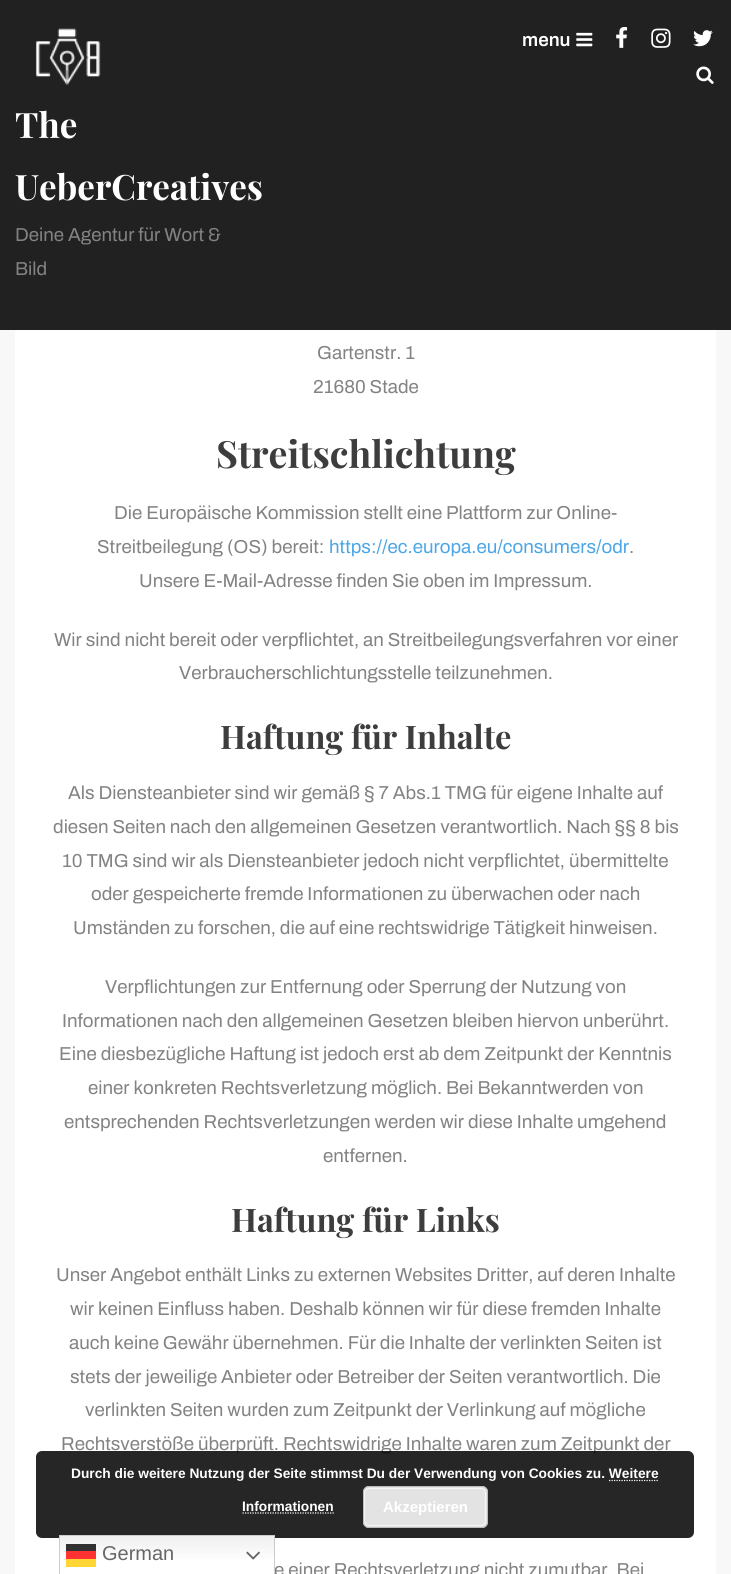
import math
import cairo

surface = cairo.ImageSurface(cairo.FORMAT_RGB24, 731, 1574)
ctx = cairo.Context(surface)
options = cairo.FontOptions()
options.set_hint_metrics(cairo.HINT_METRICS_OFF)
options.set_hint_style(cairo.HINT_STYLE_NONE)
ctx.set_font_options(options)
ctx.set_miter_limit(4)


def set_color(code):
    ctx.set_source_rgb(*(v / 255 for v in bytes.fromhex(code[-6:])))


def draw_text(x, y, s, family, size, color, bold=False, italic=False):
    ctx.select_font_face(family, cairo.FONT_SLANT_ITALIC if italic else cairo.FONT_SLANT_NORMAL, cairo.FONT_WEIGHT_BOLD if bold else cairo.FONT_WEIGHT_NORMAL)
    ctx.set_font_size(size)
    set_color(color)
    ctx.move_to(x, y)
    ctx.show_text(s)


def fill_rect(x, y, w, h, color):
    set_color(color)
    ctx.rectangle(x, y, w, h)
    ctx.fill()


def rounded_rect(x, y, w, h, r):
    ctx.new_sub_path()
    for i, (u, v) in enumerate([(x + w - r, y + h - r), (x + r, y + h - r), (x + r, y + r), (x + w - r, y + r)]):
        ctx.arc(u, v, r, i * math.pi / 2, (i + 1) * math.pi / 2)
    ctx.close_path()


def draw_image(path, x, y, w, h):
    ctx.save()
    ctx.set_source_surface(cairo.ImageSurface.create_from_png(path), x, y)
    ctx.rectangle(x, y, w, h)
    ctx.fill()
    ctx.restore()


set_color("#f8f8f8")
ctx.paint()
fill_rect(0, 0, 731, 330, "#212121")
draw_text(522, 46, "menu", "Archivo SemiBold", 18.75, "#ffffff")
draw_image("assets/img1.png", 576, 32, 17, 15)
draw_image("assets/img2.png", 616, 27, 12, 21)
draw_image("assets/img3.png", 651, 28, 20, 20)
draw_image("assets/img4.png", 693, 30, 20, 17)
draw_image("assets/img5.png", 696, 66, 18, 18)
draw_image("assets/img6.png", 35, 28, 66, 58)
draw_text(15, 138, "The", "Playfair Display", 35, "#ffffff", bold=True)
draw_text(15, 200, "UeberCreatives", "Playfair Display", 35, "#ffffff", bold=True)
draw_text(15, 241, "Deine Agentur für Wort &", "Archivo", 18.75, "#838383")
draw_text(15, 275, "Bild", "Archivo", 18.75, "#838383")
fill_rect(15, 330, 701, 1244, "#ffffff")
draw_text(317, 359, "Gartenstr. 1", "Archivo", 18.75, "#838383")
draw_text(313, 393, "21680 Stade", "Archivo", 18.75, "#838383")
draw_text(216, 468, "Streitschlichtung", "Playfair Display", 37.5, "#3d3d3d", bold=True)
draw_text(114, 519, "Die Europäische Kommission stellt eine Plattform zur Online-", "Archivo", 18.75, "#838383")
draw_text(97, 553, "Streitbeilegung (OS) bereit:", "Archivo", 18.75, "#838383")
draw_text(329, 553, "https://ec.europa.eu/consumers/odr", "Archivo", 18.75, "#4ca6e5")
draw_text(629, 553, ".", "Archivo", 18.75, "#838383")
draw_text(139, 587, "Unsere E-Mail-Adresse finden Sie oben im Impressum.", "Archivo", 18.75, "#838383")
draw_text(54, 646, "Wir sind nicht bereit oder verpflichtet, an Streitbeilegungsverfahren vor einer", "Archivo", 18.75, "#838383")
draw_text(179, 679, "Verbraucherschlichtungsstelle teilzunehmen.", "Archivo", 18.75, "#838383")
draw_text(220, 749, "Haftung für Inhalte", "Playfair Display", 32.5, "#3d3d3d", bold=True)
draw_text(68, 799, "Als Diensteanbieter sind wir gemäß § 7 Abs.1 TMG für eigene Inhalte auf", "Archivo", 18.75, "#838383")
draw_text(53, 833, "diesen Seiten nach den allgemeinen Gesetzen verantwortlich. Nach §§ 8 bis", "Archivo", 18.75, "#838383")
draw_text(62, 867, "10 TMG sind wir als Diensteanbieter jedoch nicht verpflichtet, übermittelte", "Archivo", 18.75, "#838383")
draw_text(91, 900, "oder gespeicherte fremde Informationen zu überwachen oder nach", "Archivo", 18.75, "#838383")
draw_text(73, 934, "Umständen zu forschen, die auf eine rechtswidrige Tätigkeit hinweisen.", "Archivo", 18.75, "#838383")
draw_text(105, 993, "Verpflichtungen zur Entfernung oder Sperrung der Nutzung von", "Archivo", 18.75, "#838383")
draw_text(62, 1027, "Informationen nach den allgemeinen Gesetzen bleiben hiervon unberührt.", "Archivo", 18.75, "#838383")
draw_text(59, 1060, "Eine diesbezügliche Haftung ist jedoch erst ab dem Zeitpunkt der Kenntnis", "Archivo", 18.75, "#838383")
draw_text(88, 1094, "einer konkreten Rechtsverletzung möglich. Bei Bekanntwerden von", "Archivo", 18.75, "#838383")
draw_text(64, 1128, "entsprechenden Rechtsverletzungen werden wir diese Inhalte umgehend", "Archivo", 18.75, "#838383")
draw_text(323, 1162, "entfernen.", "Archivo", 18.75, "#838383")
draw_text(231, 1232, "Haftung für Links", "Playfair Display", 32.5, "#3d3d3d", bold=True)
draw_text(56, 1281, "Unser Angebot enthält Links zu externen Websites Dritter, auf deren Inhalte", "Archivo", 18.75, "#838383")
draw_text(70, 1315, "wir keinen Einfluss haben. Deshalb können wir für diese fremden Inhalte", "Archivo", 18.75, "#838383")
draw_text(69, 1349, "auch keine Gewähr übernehmen. Für die Inhalte der verlinkten Seiten ist", "Archivo", 18.75, "#838383")
draw_text(70, 1383, "stets der jeweilige Anbieter oder Betreiber der Seiten verantwortlich. Die", "Archivo", 18.75, "#838383")
draw_text(85, 1416, "verlinkten Seiten wurden zum Zeitpunkt der Verlinkung auf mögliche", "Archivo", 18.75, "#838383")
draw_text(61, 1450, "Rechtsverstöße überprüft. Rechtswidrige Inhalte waren zum Zeitpunkt der", "Archivo", 18.75, "#838383")
draw_text(274, 1576, "e einer Rechtsverletzung nicht zumutbar. Bei", "Archivo", 18.75, "#838383")
ctx.set_source_rgba(0, 0, 0, 0.85)
rounded_rect(36, 1451, 658, 87, 6)
ctx.fill()
draw_text(71, 1478, "Durch die weitere Nutzung der Seite stimmst Du der Verwendung von Cookies zu. Weitere", "Liberation Sans", 13.75, "#ffffff", bold=True)
draw_text(242, 1511, "Informationen", "Liberation Sans", 13.75, "#ffffff", bold=True)
ctx.new_path()
ctx.move_to(609, 1480.5)
ctx.line_to(659, 1480.5)
ctx.set_line_width(1.2)
ctx.set_dash([1.25, 1.25])
ctx.stroke()
ctx.new_path()
ctx.move_to(242.5, 1513)
ctx.line_to(334, 1513)
ctx.stroke()
set_color("#e3e3e3")
rounded_rect(363, 1486, 125, 42, 6)
ctx.fill()
rounded_rect(364.5, 1488.5, 121, 37, 4.5)
set_color("#f6f6f6")
ctx.set_line_width(1)
ctx.set_dash([])
ctx.stroke()
rounded_rect(363.5, 1486.5, 124, 41, 5.5)
set_color("#bbbbbb")
ctx.stroke()
draw_text(383, 1512, "Akzeptieren", "Liberation Sans", 15, "#ffffff", bold=True)
gradient = cairo.LinearGradient(167, 1535, 167, 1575)
gradient.add_color_stop_rgba(0, 0.937, 0.937, 0.937, 1)
gradient.add_color_stop_rgba(0.7, 1, 1, 1, 1)
ctx.set_source(gradient)
ctx.rectangle(60, 1536, 214, 23)
ctx.fill()
gradient = cairo.LinearGradient(167, 1535, 167, 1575)
gradient.add_color_stop_rgba(0, 0.988, 0.188, 0.188, 1)
gradient.add_color_stop_rgba(0.7, 1, 0.2, 0.2, 1)
ctx.set_source(gradient)
ctx.rectangle(66, 1551, 30, 8)
ctx.fill()
gradient = cairo.LinearGradient(167, 1535, 167, 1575)
gradient.add_color_stop_rgba(0, 0.188, 0.188, 0.188, 1)
gradient.add_color_stop_rgba(0.7, 0.2, 0.2, 0.2, 1)
ctx.set_source(gradient)
ctx.rectangle(66, 1544, 30, 7)
ctx.fill()
ctx.rectangle(59.5, 1535.5, 215, 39)
set_color("#cccccc")
ctx.stroke()
draw_text(102, 1560, "German", "Liberation Sans", 20, "#666666")
draw_image("assets/img7.png", 246, 1551, 14, 9)
fill_rect(66, 1559, 30, 8, "#ffd633")
surface.write_to_png("output.png")
